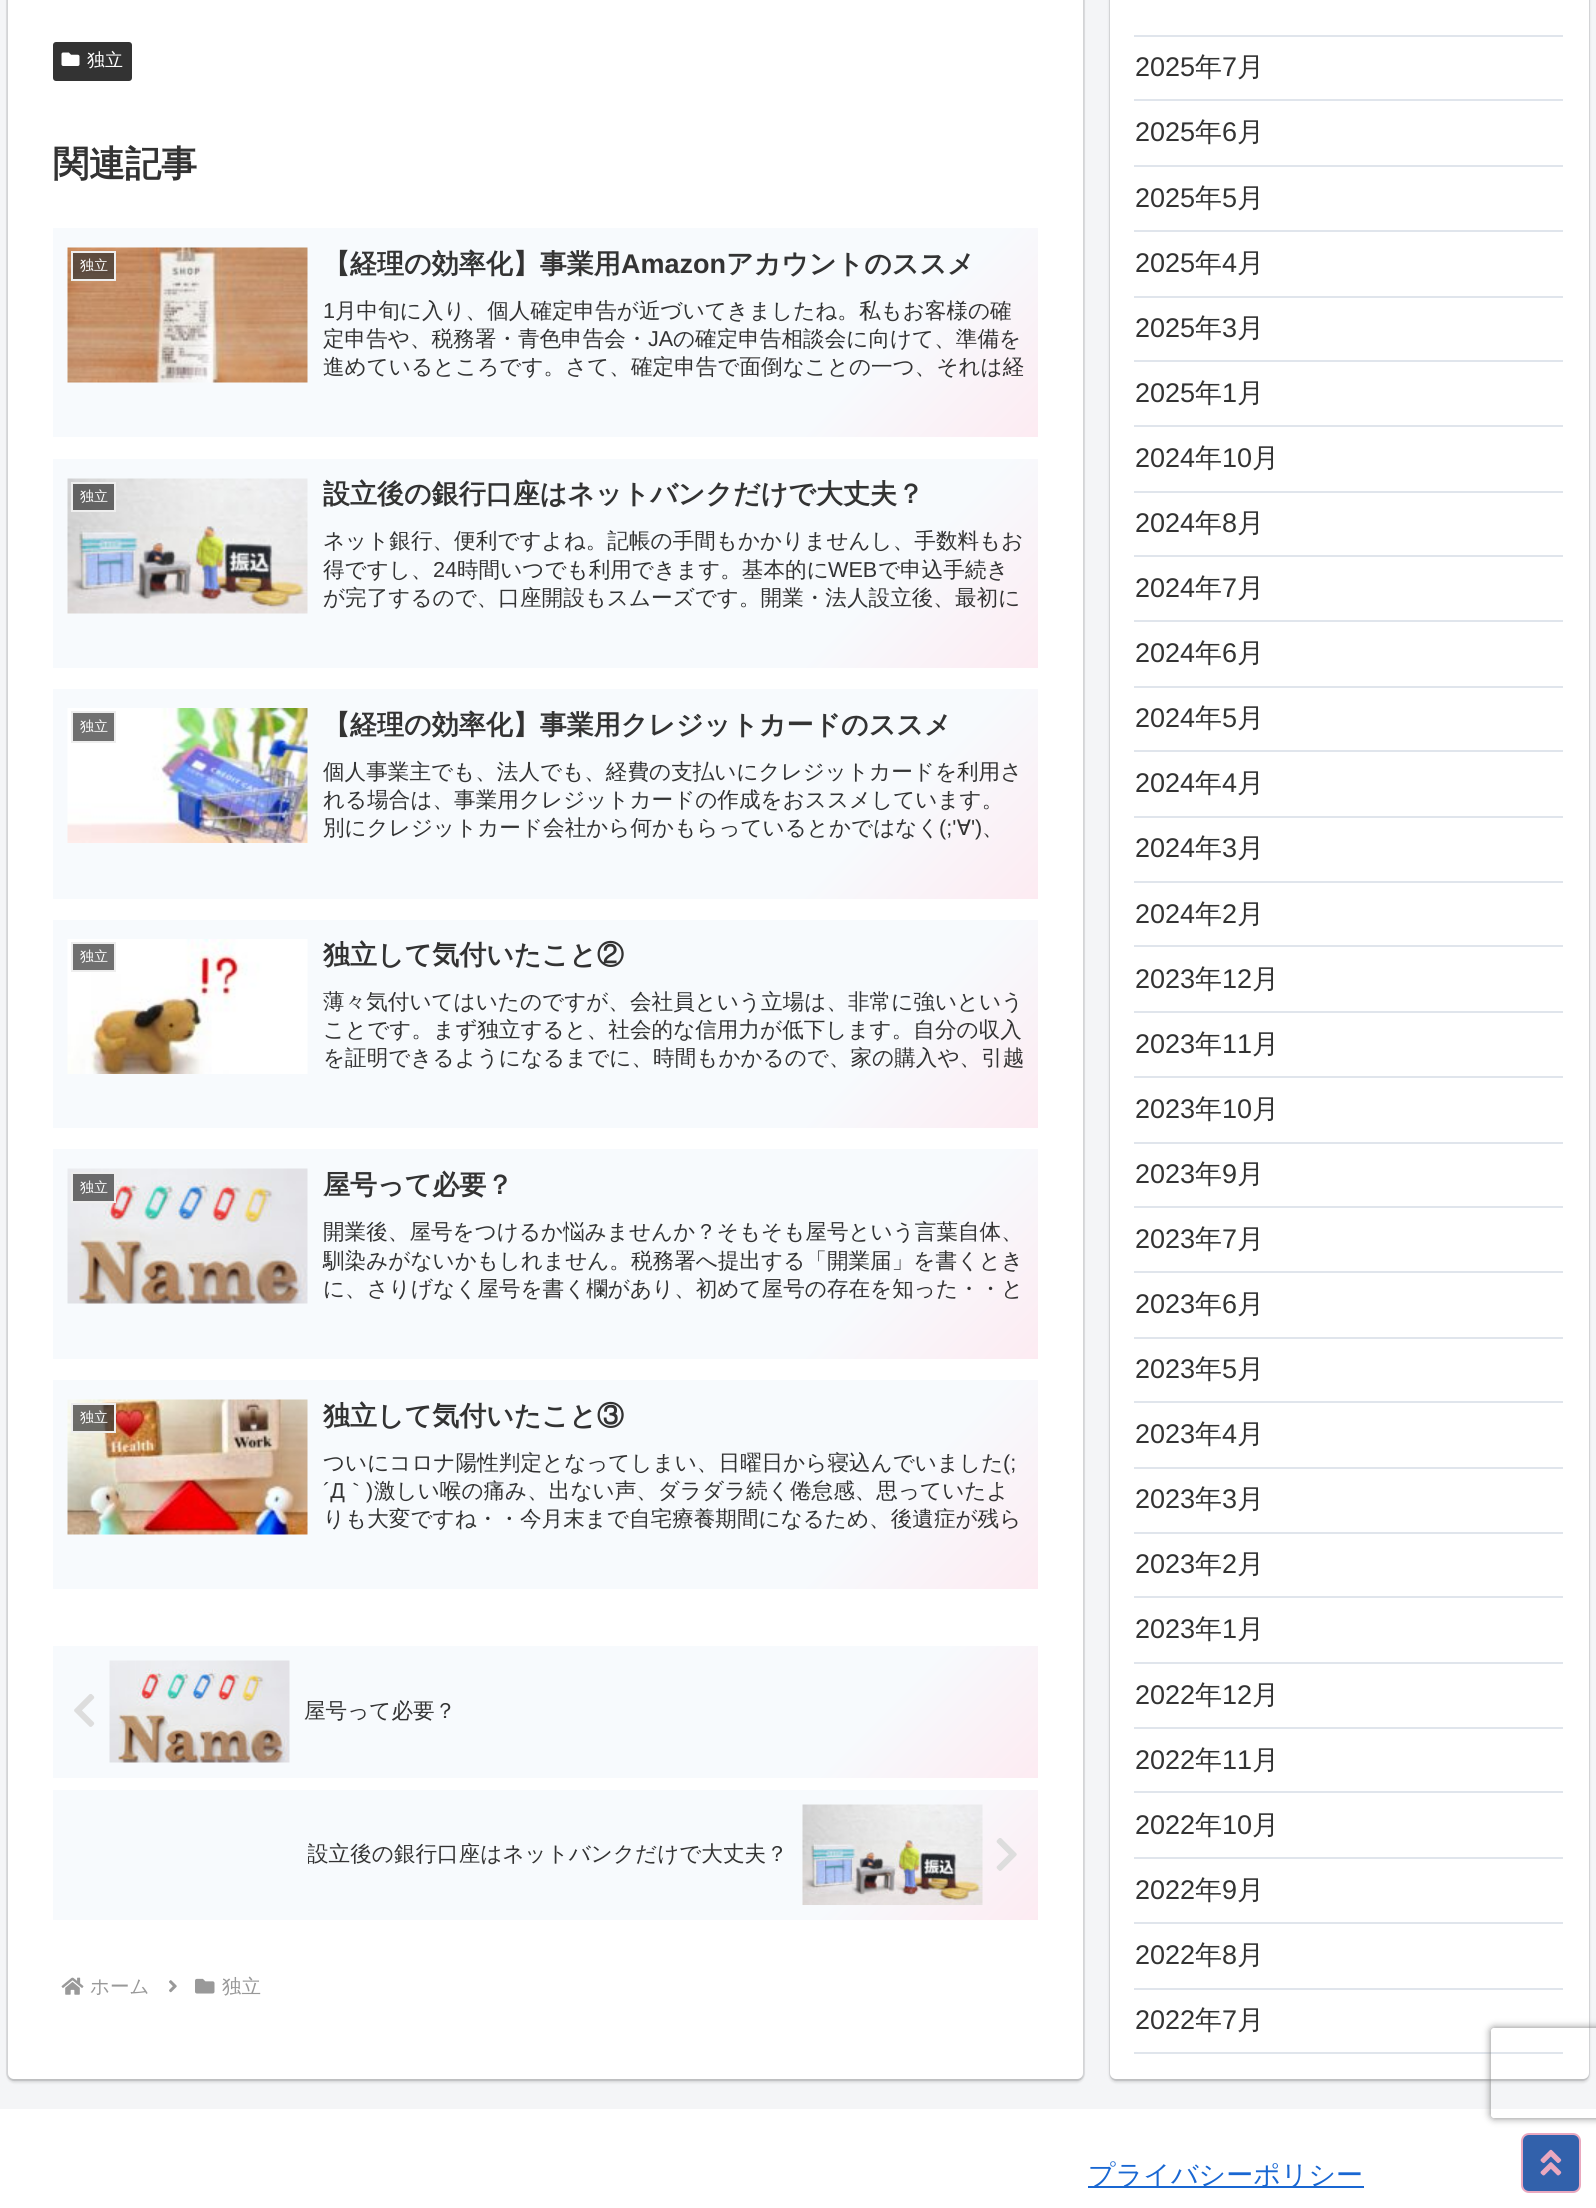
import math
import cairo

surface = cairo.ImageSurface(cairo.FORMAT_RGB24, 1596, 2208)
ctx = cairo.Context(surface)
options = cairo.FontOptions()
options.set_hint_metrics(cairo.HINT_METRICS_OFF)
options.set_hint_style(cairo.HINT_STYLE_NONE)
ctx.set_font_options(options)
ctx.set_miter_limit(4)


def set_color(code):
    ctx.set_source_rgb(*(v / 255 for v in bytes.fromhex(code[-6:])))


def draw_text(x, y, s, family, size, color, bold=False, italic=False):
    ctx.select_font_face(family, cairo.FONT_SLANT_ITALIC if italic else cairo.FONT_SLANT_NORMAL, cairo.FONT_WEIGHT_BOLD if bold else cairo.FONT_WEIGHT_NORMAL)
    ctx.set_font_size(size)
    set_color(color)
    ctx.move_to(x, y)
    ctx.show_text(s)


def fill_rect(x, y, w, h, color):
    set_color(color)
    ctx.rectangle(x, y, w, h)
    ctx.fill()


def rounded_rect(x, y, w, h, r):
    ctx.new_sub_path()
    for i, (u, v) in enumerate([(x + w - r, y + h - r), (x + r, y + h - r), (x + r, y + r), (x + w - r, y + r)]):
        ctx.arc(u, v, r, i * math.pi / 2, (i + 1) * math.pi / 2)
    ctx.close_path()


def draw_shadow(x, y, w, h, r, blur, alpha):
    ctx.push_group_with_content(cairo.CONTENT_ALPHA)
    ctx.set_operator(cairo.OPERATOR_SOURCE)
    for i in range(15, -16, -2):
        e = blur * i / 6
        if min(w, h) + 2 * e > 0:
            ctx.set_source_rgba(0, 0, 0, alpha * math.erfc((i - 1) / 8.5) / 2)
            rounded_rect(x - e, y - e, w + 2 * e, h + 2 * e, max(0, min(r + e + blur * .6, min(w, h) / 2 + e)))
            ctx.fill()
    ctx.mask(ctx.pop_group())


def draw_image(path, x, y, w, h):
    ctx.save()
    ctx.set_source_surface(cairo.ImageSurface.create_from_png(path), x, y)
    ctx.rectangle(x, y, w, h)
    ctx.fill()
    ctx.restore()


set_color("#f4f5f7")
ctx.paint()
rounded_rect(7, -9, 1077, 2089, 7)
set_color("#e0e1e3")
ctx.stroke()
set_color("#000000")
draw_shadow(8, -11, 1075, 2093, 6, 1.5, 0.16)
set_color("#ffffff")
rounded_rect(8, -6, 1075, 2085, 6)
ctx.fill()
set_color("#333333")
rounded_rect(53, 42, 79, 39, 3)
ctx.fill()
draw_image("assets/img1.png", 61, 52, 19, 14)
draw_text(87, 66, "独立", "WenQuanYi Zen Hei Medium", 18, "#ffffff")
draw_text(53, 176, "関連記事", "WenQuanYi Zen Hei", 36, "#333333", bold=True)
gradient = cairo.LinearGradient(247, 34, 844, 631)
gradient.add_color_stop_rgba(0, 0.969, 0.98, 0.992, 1)
gradient.add_color_stop_rgba(0.8, 0.969, 0.98, 0.992, 1)
gradient.add_color_stop_rgba(1, 0.992, 0.922, 0.949, 1)
ctx.set_source(gradient)
ctx.rectangle(53, 228, 985, 209)
ctx.fill()
draw_image("assets/img2.png", 67, 247, 241, 136)
ctx.set_source_rgba(0.2, 0.2, 0.2, 0.7)
ctx.rectangle(72, 252, 43, 28)
ctx.fill_preserve()
set_color("#eeeeee")
ctx.stroke()
draw_text(80, 270, "独立", "WenQuanYi Zen Hei Medium", 14, "#ffffff")
draw_text(323, 273, "【経理の効率化】事業用", "WenQuanYi Zen Hei", 27, "#333333", bold=True)
draw_text(621, 273, "Amazon", "Liberation Sans", 27, "#333333", bold=True)
draw_text(726, 273, "アカウントのススメ", "WenQuanYi Zen Hei", 27, "#333333", bold=True)
draw_text(323, 318, "1", "Liberation Sans", 21.6, "#333333")
draw_text(335, 318, "月中旬に入り、個人確定申告が近づいてきましたね。私もお客様の確", "WenQuanYi Zen Hei Medium", 21.6, "#333333")
draw_text(323, 346, "定申告や、税務署・青色申告会・", "WenQuanYi Zen Hei Medium", 21.6, "#333333")
draw_text(648, 346, "JA", "Liberation Sans", 21.6, "#333333")
draw_text(673, 346, "の確定申告相談会に向けて、準備を", "WenQuanYi Zen Hei Medium", 21.6, "#333333")
draw_text(323, 374, "進めているところです。さて、確定申告で面倒なことの一つ、それは経", "WenQuanYi Zen Hei Medium", 21.6, "#333333")
gradient = cairo.LinearGradient(247, 265, 844, 862)
gradient.add_color_stop_rgba(0, 0.969, 0.98, 0.992, 1)
gradient.add_color_stop_rgba(0.8, 0.969, 0.98, 0.992, 1)
gradient.add_color_stop_rgba(1, 0.992, 0.922, 0.949, 1)
ctx.set_source(gradient)
ctx.rectangle(53, 459, 985, 209)
ctx.fill()
draw_image("assets/img3.png", 67, 478, 241, 136)
ctx.set_source_rgba(0.2, 0.2, 0.2, 0.7)
ctx.rectangle(72, 483, 43, 28)
ctx.fill_preserve()
set_color("#eeeeee")
ctx.stroke()
draw_text(80, 501, "独立", "WenQuanYi Zen Hei Medium", 14, "#ffffff")
draw_text(323, 503, "設立後の銀行口座はネットバンクだけで大丈夫？", "WenQuanYi Zen Hei", 27, "#333333", bold=True)
draw_text(323, 548, "ネット銀行、便利ですよね。記帳の手間もかかりませんし、手数料もお", "WenQuanYi Zen Hei Medium", 21.6, "#333333")
draw_text(323, 577, "得ですし、", "WenQuanYi Zen Hei Medium", 21.6, "#333333")
draw_text(433, 577, "24", "Liberation Sans", 21.6, "#333333")
draw_text(457, 577, "時間いつでも利用できます。基本的に", "WenQuanYi Zen Hei Medium", 21.6, "#333333")
draw_text(828, 577, "WEB", "Liberation Sans", 21.6, "#333333")
draw_text(878, 577, "で申込手続き", "WenQuanYi Zen Hei Medium", 21.6, "#333333")
draw_text(323, 605, "が完了するので、口座開設もスムーズです。開業・法人設立後、最初に", "WenQuanYi Zen Hei Medium", 21.6, "#333333")
gradient = cairo.LinearGradient(246, 495, 844, 1092)
gradient.add_color_stop_rgba(0, 0.969, 0.98, 0.992, 1)
gradient.add_color_stop_rgba(0.8, 0.969, 0.98, 0.992, 1)
gradient.add_color_stop_rgba(1, 0.992, 0.922, 0.949, 1)
ctx.set_source(gradient)
ctx.rectangle(53, 689, 985, 210)
ctx.fill()
draw_image("assets/img4.png", 67, 708, 241, 135)
set_color("#707070")
ctx.rectangle(72, 712, 43, 30)
ctx.fill_preserve()
set_color("#eeeeee")
ctx.stroke()
draw_text(80, 731, "独立", "WenQuanYi Zen Hei Medium", 14, "#ffffff")
draw_text(323, 734, "【経理の効率化】事業用クレジットカードのススメ", "WenQuanYi Zen Hei", 27, "#333333", bold=True)
draw_text(323, 779, "個人事業主でも、法人でも、経費の支払いにクレジットカードを利用さ", "WenQuanYi Zen Hei Medium", 21.6, "#333333")
draw_text(323, 807, "れる場合は、事業用クレジットカードの作成をおススメしています。", "WenQuanYi Zen Hei Medium", 21.6, "#333333")
draw_text(323, 835, "別にクレジットカード会社から何かもらっているとかではなく", "WenQuanYi Zen Hei Medium", 21.6, "#333333")
draw_text(939, 835, "(;'", "Liberation Sans", 21.6, "#333333")
draw_text(957, 835, "∀", "WenQuanYi Zen Hei Medium", 21.6, "#333333")
draw_text(971, 835, "')", "Liberation Sans", 21.6, "#333333")
draw_text(982, 835, "、", "WenQuanYi Zen Hei Medium", 21.6, "#333333")
gradient = cairo.LinearGradient(247, 725, 844, 1322)
gradient.add_color_stop_rgba(0, 0.969, 0.98, 0.992, 1)
gradient.add_color_stop_rgba(0.8, 0.969, 0.98, 0.992, 1)
gradient.add_color_stop_rgba(1, 0.992, 0.922, 0.949, 1)
ctx.set_source(gradient)
ctx.rectangle(53, 920, 985, 208)
ctx.fill()
draw_image("assets/img5.png", 67, 939, 241, 135)
set_color("#707070")
ctx.rectangle(72, 943, 43, 28)
ctx.fill_preserve()
set_color("#eeeeee")
ctx.stroke()
draw_text(80, 961, "独立", "WenQuanYi Zen Hei Medium", 14, "#ffffff")
draw_text(323, 964, "独立して気付いたこと②", "WenQuanYi Zen Hei", 27, "#333333", bold=True)
draw_text(323, 1009, "薄々気付いてはいたのですが、会社員という立場は、非常に強いという", "WenQuanYi Zen Hei Medium", 21.6, "#333333")
draw_text(323, 1037, "ことです。まず独立すると、社会的な信用力が低下します。自分の収入", "WenQuanYi Zen Hei Medium", 21.6, "#333333")
draw_text(323, 1065, "を証明できるようになるまでに、時間もかかるので、家の購入や、引越", "WenQuanYi Zen Hei Medium", 21.6, "#333333")
gradient = cairo.LinearGradient(246, 955, 844, 1553)
gradient.add_color_stop_rgba(0, 0.969, 0.98, 0.992, 1)
gradient.add_color_stop_rgba(0.8, 0.969, 0.98, 0.992, 1)
gradient.add_color_stop_rgba(1, 0.992, 0.922, 0.949, 1)
ctx.set_source(gradient)
ctx.rectangle(53, 1149, 985, 210)
ctx.fill()
draw_image("assets/img6.png", 67, 1168, 241, 136)
ctx.set_source_rgba(0.2, 0.2, 0.2, 0.7)
ctx.rectangle(72, 1173, 43, 29)
ctx.fill_preserve()
set_color("#eeeeee")
ctx.stroke()
draw_text(80, 1192, "独立", "WenQuanYi Zen Hei Medium", 14, "#ffffff")
draw_text(323, 1194, "屋号って必要？", "WenQuanYi Zen Hei", 27, "#333333", bold=True)
draw_text(323, 1239, "開業後、屋号をつけるか悩みませんか？そもそも屋号という言葉自体、", "WenQuanYi Zen Hei Medium", 21.6, "#333333")
draw_text(323, 1268, "馴染みがないかもしれません。税務署へ提出する「開業届」を書くとき", "WenQuanYi Zen Hei Medium", 21.6, "#333333")
draw_text(323, 1296, "に、さりげなく屋号を書く欄があり、初めて屋号の存在を知った・・と", "WenQuanYi Zen Hei Medium", 21.6, "#333333")
gradient = cairo.LinearGradient(247, 1186, 844, 1783)
gradient.add_color_stop_rgba(0, 0.969, 0.98, 0.992, 1)
gradient.add_color_stop_rgba(0.8, 0.969, 0.98, 0.992, 1)
gradient.add_color_stop_rgba(1, 0.992, 0.922, 0.949, 1)
ctx.set_source(gradient)
ctx.rectangle(53, 1380, 985, 209)
ctx.fill()
draw_image("assets/img7.png", 67, 1399, 241, 136)
ctx.set_source_rgba(0.2, 0.2, 0.2, 0.7)
ctx.rectangle(72, 1404, 43, 28)
ctx.fill_preserve()
set_color("#eeeeee")
ctx.stroke()
draw_text(80, 1422, "独立", "WenQuanYi Zen Hei Medium", 14, "#ffffff")
draw_text(323, 1425, "独立して気付いたこと③", "WenQuanYi Zen Hei", 27, "#333333", bold=True)
draw_text(323, 1470, "ついにコロナ陽性判定となってしまい、日曜日から寝込んでいました", "WenQuanYi Zen Hei Medium", 21.6, "#333333")
draw_text(1003, 1470, "(;", "Liberation Sans", 21.6, "#333333")
draw_text(323, 1498, "´Д", "Liberation Sans", 21.6, "#333333")
draw_text(345, 1498, "｀", "WenQuanYi Zen Hei Medium", 21.6, "#333333")
draw_text(366, 1498, ")", "Liberation Sans", 21.6, "#333333")
draw_text(374, 1498, "激しい喉の痛み、出ない声、ダラダラ続く倦怠感、思っていたよ", "WenQuanYi Zen Hei Medium", 21.6, "#333333")
draw_text(323, 1526, "りも大変ですね・・今月末まで自宅療養期間になるため、後遺症が残ら", "WenQuanYi Zen Hei Medium", 21.6, "#333333")
gradient = cairo.LinearGradient(266, 1432, 825, 1991)
gradient.add_color_stop_rgba(0, 0.969, 0.98, 0.992, 1)
gradient.add_color_stop_rgba(0.8, 0.969, 0.98, 0.992, 1)
gradient.add_color_stop_rgba(1, 0.992, 0.922, 0.949, 1)
ctx.set_source(gradient)
ctx.rectangle(53, 1646, 985, 132)
ctx.fill()
draw_image("assets/img8.png", 74, 1694, 21, 33)
draw_image("assets/img9.png", 109, 1660, 181, 103)
draw_text(304, 1718, "屋号って必要？", "WenQuanYi Zen Hei Medium", 21.6, "#333333")
gradient = cairo.LinearGradient(266, 1576, 824, 2134)
gradient.add_color_stop_rgba(0, 0.969, 0.98, 0.992, 1)
gradient.add_color_stop_rgba(0.8, 0.969, 0.98, 0.992, 1)
gradient.add_color_stop_rgba(1, 0.992, 0.922, 0.949, 1)
ctx.set_source(gradient)
ctx.rectangle(53, 1790, 985, 130)
ctx.fill()
ctx.save()
ctx.rectangle(308, 1842, 480, 26)
ctx.clip()
draw_text(307, 1861, "設立後の銀行口座はネットバンクだけで大丈夫？", "WenQuanYi Zen Hei Medium", 21.6, "#333333")
ctx.restore()
draw_image("assets/img10.png", 802, 1804, 181, 101)
draw_image("assets/img11.png", 996, 1838, 21, 33)
draw_image("assets/img12.png", 61, 1977, 23, 18)
draw_text(90, 1993, "ホーム", "WenQuanYi Zen Hei Medium", 19.5, "#999999")
draw_image("assets/img13.png", 169, 1980, 8, 13)
draw_image("assets/img14.png", 195, 1978, 20, 16)
draw_text(222, 1993, "独立", "WenQuanYi Zen Hei Medium", 19.5, "#999999")
rounded_rect(1110, -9, 479, 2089, 7)
set_color("#e0e1e3")
ctx.stroke()
set_color("#000000")
draw_shadow(1110, -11, 479, 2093, 6, 1.5, 0.16)
set_color("#ffffff")
rounded_rect(1110, -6, 479, 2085, 6)
ctx.fill()
fill_rect(1134, 35, 429, 2, "#e0e5ec")
fill_rect(1134, 99, 429, 2, "#e0e5ec")
draw_text(1135, 76, "2025", "Liberation Sans", 27, "#333333")
draw_text(1195, 76, "年", "WenQuanYi Zen Hei Medium", 27, "#333333")
draw_text(1222, 76, "7", "Liberation Sans", 27, "#333333")
draw_text(1237, 76, "月", "WenQuanYi Zen Hei Medium", 27, "#333333")
fill_rect(1134, 165, 429, 2, "#e0e5ec")
draw_text(1135, 141, "2025", "Liberation Sans", 27, "#333333")
draw_text(1195, 141, "年", "WenQuanYi Zen Hei Medium", 27, "#333333")
draw_text(1222, 141, "6", "Liberation Sans", 27, "#333333")
draw_text(1237, 141, "月", "WenQuanYi Zen Hei Medium", 27, "#333333")
fill_rect(1134, 230, 429, 2, "#e0e5ec")
draw_text(1135, 207, "2025", "Liberation Sans", 27, "#333333")
draw_text(1195, 207, "年", "WenQuanYi Zen Hei Medium", 27, "#333333")
draw_text(1222, 207, "5", "Liberation Sans", 27, "#333333")
draw_text(1237, 207, "月", "WenQuanYi Zen Hei Medium", 27, "#333333")
fill_rect(1134, 296, 429, 2, "#e0e5ec")
draw_text(1135, 272, "2025", "Liberation Sans", 27, "#333333")
draw_text(1195, 272, "年", "WenQuanYi Zen Hei Medium", 27, "#333333")
draw_text(1222, 272, "4", "Liberation Sans", 27, "#333333")
draw_text(1237, 272, "月", "WenQuanYi Zen Hei Medium", 27, "#333333")
fill_rect(1134, 360, 429, 2, "#e0e5ec")
draw_text(1135, 337, "2025", "Liberation Sans", 27, "#333333")
draw_text(1195, 337, "年", "WenQuanYi Zen Hei Medium", 27, "#333333")
draw_text(1222, 337, "3", "Liberation Sans", 27, "#333333")
draw_text(1237, 337, "月", "WenQuanYi Zen Hei Medium", 27, "#333333")
fill_rect(1134, 425, 429, 2, "#e0e5ec")
draw_text(1135, 402, "2025", "Liberation Sans", 27, "#333333")
draw_text(1195, 402, "年", "WenQuanYi Zen Hei Medium", 27, "#333333")
draw_text(1222, 402, "1", "Liberation Sans", 27, "#333333")
draw_text(1237, 402, "月", "WenQuanYi Zen Hei Medium", 27, "#333333")
fill_rect(1134, 491, 429, 2, "#e0e5ec")
draw_text(1135, 467, "2024", "Liberation Sans", 27, "#333333")
draw_text(1195, 467, "年", "WenQuanYi Zen Hei Medium", 27, "#333333")
draw_text(1222, 467, "10", "Liberation Sans", 27, "#333333")
draw_text(1252, 467, "月", "WenQuanYi Zen Hei Medium", 27, "#333333")
fill_rect(1134, 555, 429, 2, "#e0e5ec")
draw_text(1135, 532, "2024", "Liberation Sans", 27, "#333333")
draw_text(1195, 532, "年", "WenQuanYi Zen Hei Medium", 27, "#333333")
draw_text(1222, 532, "8", "Liberation Sans", 27, "#333333")
draw_text(1237, 532, "月", "WenQuanYi Zen Hei Medium", 27, "#333333")
fill_rect(1134, 620, 429, 2, "#e0e5ec")
draw_text(1135, 597, "2024", "Liberation Sans", 27, "#333333")
draw_text(1195, 597, "年", "WenQuanYi Zen Hei Medium", 27, "#333333")
draw_text(1222, 597, "7", "Liberation Sans", 27, "#333333")
draw_text(1237, 597, "月", "WenQuanYi Zen Hei Medium", 27, "#333333")
fill_rect(1134, 686, 429, 2, "#e0e5ec")
draw_text(1135, 662, "2024", "Liberation Sans", 27, "#333333")
draw_text(1195, 662, "年", "WenQuanYi Zen Hei Medium", 27, "#333333")
draw_text(1222, 662, "6", "Liberation Sans", 27, "#333333")
draw_text(1237, 662, "月", "WenQuanYi Zen Hei Medium", 27, "#333333")
fill_rect(1134, 750, 429, 2, "#e0e5ec")
draw_text(1135, 727, "2024", "Liberation Sans", 27, "#333333")
draw_text(1195, 727, "年", "WenQuanYi Zen Hei Medium", 27, "#333333")
draw_text(1222, 727, "5", "Liberation Sans", 27, "#333333")
draw_text(1237, 727, "月", "WenQuanYi Zen Hei Medium", 27, "#333333")
fill_rect(1134, 816, 429, 2, "#e0e5ec")
draw_text(1135, 792, "2024", "Liberation Sans", 27, "#333333")
draw_text(1195, 792, "年", "WenQuanYi Zen Hei Medium", 27, "#333333")
draw_text(1222, 792, "4", "Liberation Sans", 27, "#333333")
draw_text(1237, 792, "月", "WenQuanYi Zen Hei Medium", 27, "#333333")
fill_rect(1134, 881, 429, 2, "#e0e5ec")
draw_text(1135, 857, "2024", "Liberation Sans", 27, "#333333")
draw_text(1195, 857, "年", "WenQuanYi Zen Hei Medium", 27, "#333333")
draw_text(1222, 857, "3", "Liberation Sans", 27, "#333333")
draw_text(1237, 857, "月", "WenQuanYi Zen Hei Medium", 27, "#333333")
fill_rect(1134, 945, 429, 2, "#e0e5ec")
draw_text(1135, 923, "2024", "Liberation Sans", 27, "#333333")
draw_text(1195, 923, "年", "WenQuanYi Zen Hei Medium", 27, "#333333")
draw_text(1222, 923, "2", "Liberation Sans", 27, "#333333")
draw_text(1237, 923, "月", "WenQuanYi Zen Hei Medium", 27, "#333333")
fill_rect(1134, 1011, 429, 2, "#e0e5ec")
draw_text(1135, 988, "2023", "Liberation Sans", 27, "#333333")
draw_text(1195, 988, "年", "WenQuanYi Zen Hei Medium", 27, "#333333")
draw_text(1222, 988, "12", "Liberation Sans", 27, "#333333")
draw_text(1252, 988, "月", "WenQuanYi Zen Hei Medium", 27, "#333333")
fill_rect(1134, 1076, 429, 2, "#e0e5ec")
draw_text(1135, 1053, "2023", "Liberation Sans", 27, "#333333")
draw_text(1195, 1053, "年", "WenQuanYi Zen Hei Medium", 27, "#333333")
draw_text(1222, 1053, "11", "Liberation Sans", 27, "#333333")
draw_text(1252, 1053, "月", "WenQuanYi Zen Hei Medium", 27, "#333333")
fill_rect(1134, 1142, 429, 2, "#e0e5ec")
draw_text(1135, 1118, "2023", "Liberation Sans", 27, "#333333")
draw_text(1195, 1118, "年", "WenQuanYi Zen Hei Medium", 27, "#333333")
draw_text(1222, 1118, "10", "Liberation Sans", 27, "#333333")
draw_text(1252, 1118, "月", "WenQuanYi Zen Hei Medium", 27, "#333333")
fill_rect(1134, 1206, 429, 2, "#e0e5ec")
draw_text(1135, 1183, "2023", "Liberation Sans", 27, "#333333")
draw_text(1195, 1183, "年", "WenQuanYi Zen Hei Medium", 27, "#333333")
draw_text(1222, 1183, "9", "Liberation Sans", 27, "#333333")
draw_text(1237, 1183, "月", "WenQuanYi Zen Hei Medium", 27, "#333333")
fill_rect(1134, 1271, 429, 2, "#e0e5ec")
draw_text(1135, 1248, "2023", "Liberation Sans", 27, "#333333")
draw_text(1195, 1248, "年", "WenQuanYi Zen Hei Medium", 27, "#333333")
draw_text(1222, 1248, "7", "Liberation Sans", 27, "#333333")
draw_text(1237, 1248, "月", "WenQuanYi Zen Hei Medium", 27, "#333333")
fill_rect(1134, 1337, 429, 2, "#e0e5ec")
draw_text(1135, 1313, "2023", "Liberation Sans", 27, "#333333")
draw_text(1195, 1313, "年", "WenQuanYi Zen Hei Medium", 27, "#333333")
draw_text(1222, 1313, "6", "Liberation Sans", 27, "#333333")
draw_text(1237, 1313, "月", "WenQuanYi Zen Hei Medium", 27, "#333333")
fill_rect(1134, 1401, 429, 2, "#e0e5ec")
draw_text(1135, 1378, "2023", "Liberation Sans", 27, "#333333")
draw_text(1195, 1378, "年", "WenQuanYi Zen Hei Medium", 27, "#333333")
draw_text(1222, 1378, "5", "Liberation Sans", 27, "#333333")
draw_text(1237, 1378, "月", "WenQuanYi Zen Hei Medium", 27, "#333333")
fill_rect(1134, 1467, 429, 2, "#e0e5ec")
draw_text(1135, 1443, "2023", "Liberation Sans", 27, "#333333")
draw_text(1195, 1443, "年", "WenQuanYi Zen Hei Medium", 27, "#333333")
draw_text(1222, 1443, "4", "Liberation Sans", 27, "#333333")
draw_text(1237, 1443, "月", "WenQuanYi Zen Hei Medium", 27, "#333333")
fill_rect(1134, 1532, 429, 2, "#e0e5ec")
draw_text(1135, 1508, "2023", "Liberation Sans", 27, "#333333")
draw_text(1195, 1508, "年", "WenQuanYi Zen Hei Medium", 27, "#333333")
draw_text(1222, 1508, "3", "Liberation Sans", 27, "#333333")
draw_text(1237, 1508, "月", "WenQuanYi Zen Hei Medium", 27, "#333333")
fill_rect(1134, 1596, 429, 2, "#e0e5ec")
draw_text(1135, 1573, "2023", "Liberation Sans", 27, "#333333")
draw_text(1195, 1573, "年", "WenQuanYi Zen Hei Medium", 27, "#333333")
draw_text(1222, 1573, "2", "Liberation Sans", 27, "#333333")
draw_text(1237, 1573, "月", "WenQuanYi Zen Hei Medium", 27, "#333333")
fill_rect(1134, 1662, 429, 2, "#e0e5ec")
draw_text(1135, 1638, "2023", "Liberation Sans", 27, "#333333")
draw_text(1195, 1638, "年", "WenQuanYi Zen Hei Medium", 27, "#333333")
draw_text(1222, 1638, "1", "Liberation Sans", 27, "#333333")
draw_text(1237, 1638, "月", "WenQuanYi Zen Hei Medium", 27, "#333333")
fill_rect(1134, 1727, 429, 2, "#e0e5ec")
draw_text(1135, 1704, "2022", "Liberation Sans", 27, "#333333")
draw_text(1195, 1704, "年", "WenQuanYi Zen Hei Medium", 27, "#333333")
draw_text(1222, 1704, "12", "Liberation Sans", 27, "#333333")
draw_text(1252, 1704, "月", "WenQuanYi Zen Hei Medium", 27, "#333333")
fill_rect(1134, 1791, 429, 2, "#e0e5ec")
draw_text(1135, 1769, "2022", "Liberation Sans", 27, "#333333")
draw_text(1195, 1769, "年", "WenQuanYi Zen Hei Medium", 27, "#333333")
draw_text(1222, 1769, "11", "Liberation Sans", 27, "#333333")
draw_text(1252, 1769, "月", "WenQuanYi Zen Hei Medium", 27, "#333333")
fill_rect(1134, 1857, 429, 2, "#e0e5ec")
draw_text(1135, 1834, "2022", "Liberation Sans", 27, "#333333")
draw_text(1195, 1834, "年", "WenQuanYi Zen Hei Medium", 27, "#333333")
draw_text(1222, 1834, "10", "Liberation Sans", 27, "#333333")
draw_text(1252, 1834, "月", "WenQuanYi Zen Hei Medium", 27, "#333333")
fill_rect(1134, 1922, 429, 2, "#e0e5ec")
draw_text(1135, 1899, "2022", "Liberation Sans", 27, "#333333")
draw_text(1195, 1899, "年", "WenQuanYi Zen Hei Medium", 27, "#333333")
draw_text(1222, 1899, "9", "Liberation Sans", 27, "#333333")
draw_text(1237, 1899, "月", "WenQuanYi Zen Hei Medium", 27, "#333333")
fill_rect(1134, 1988, 429, 2, "#e0e5ec")
draw_text(1135, 1964, "2022", "Liberation Sans", 27, "#333333")
draw_text(1195, 1964, "年", "WenQuanYi Zen Hei Medium", 27, "#333333")
draw_text(1222, 1964, "8", "Liberation Sans", 27, "#333333")
draw_text(1237, 1964, "月", "WenQuanYi Zen Hei Medium", 27, "#333333")
fill_rect(1134, 2052, 429, 2, "#e0e5ec")
draw_text(1135, 2029, "2022", "Liberation Sans", 27, "#333333")
draw_text(1195, 2029, "年", "WenQuanYi Zen Hei Medium", 27, "#333333")
draw_text(1222, 2029, "7", "Liberation Sans", 27, "#333333")
draw_text(1237, 2029, "月", "WenQuanYi Zen Hei Medium", 27, "#333333")
fill_rect(0, 2109, 1596, 99, "#ffffff")
fill_rect(1088, 2186, 276, 2, "#1967d2")
draw_text(1088, 2184, "プライバシーポリシー", "WenQuanYi Zen Hei Medium", 27, "#1967d2")
set_color("#3261ab")
rounded_rect(1522, 2134, 58, 58, 7)
ctx.fill_preserve()
set_color("#eaa8bf")
ctx.stroke()
draw_image("assets/img15.png", 1540, 2149, 22, 27)
ctx.save()
ctx.set_fill_rule(cairo.FILL_RULE_EVEN_ODD)
ctx.new_path()
ctx.move_to(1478, 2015)
ctx.line_to(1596, 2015)
ctx.line_to(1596, 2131)
ctx.line_to(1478, 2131)
ctx.close_path()
ctx.move_to(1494, 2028)
ctx.line_to(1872, 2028)
ctx.curve_to(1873.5, 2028, 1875, 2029.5, 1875, 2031)
ctx.line_to(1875, 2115)
ctx.curve_to(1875, 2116.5, 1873.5, 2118, 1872, 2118)
ctx.line_to(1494, 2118)
ctx.curve_to(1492.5, 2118, 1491, 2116.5, 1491, 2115)
ctx.line_to(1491, 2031)
ctx.curve_to(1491, 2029.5, 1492.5, 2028, 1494, 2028)
ctx.close_path()
ctx.clip()
set_color("#808080")
draw_shadow(1491, 2028, 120, 90, 3, 4, 1)
ctx.restore()
surface.write_to_png("output.png")
